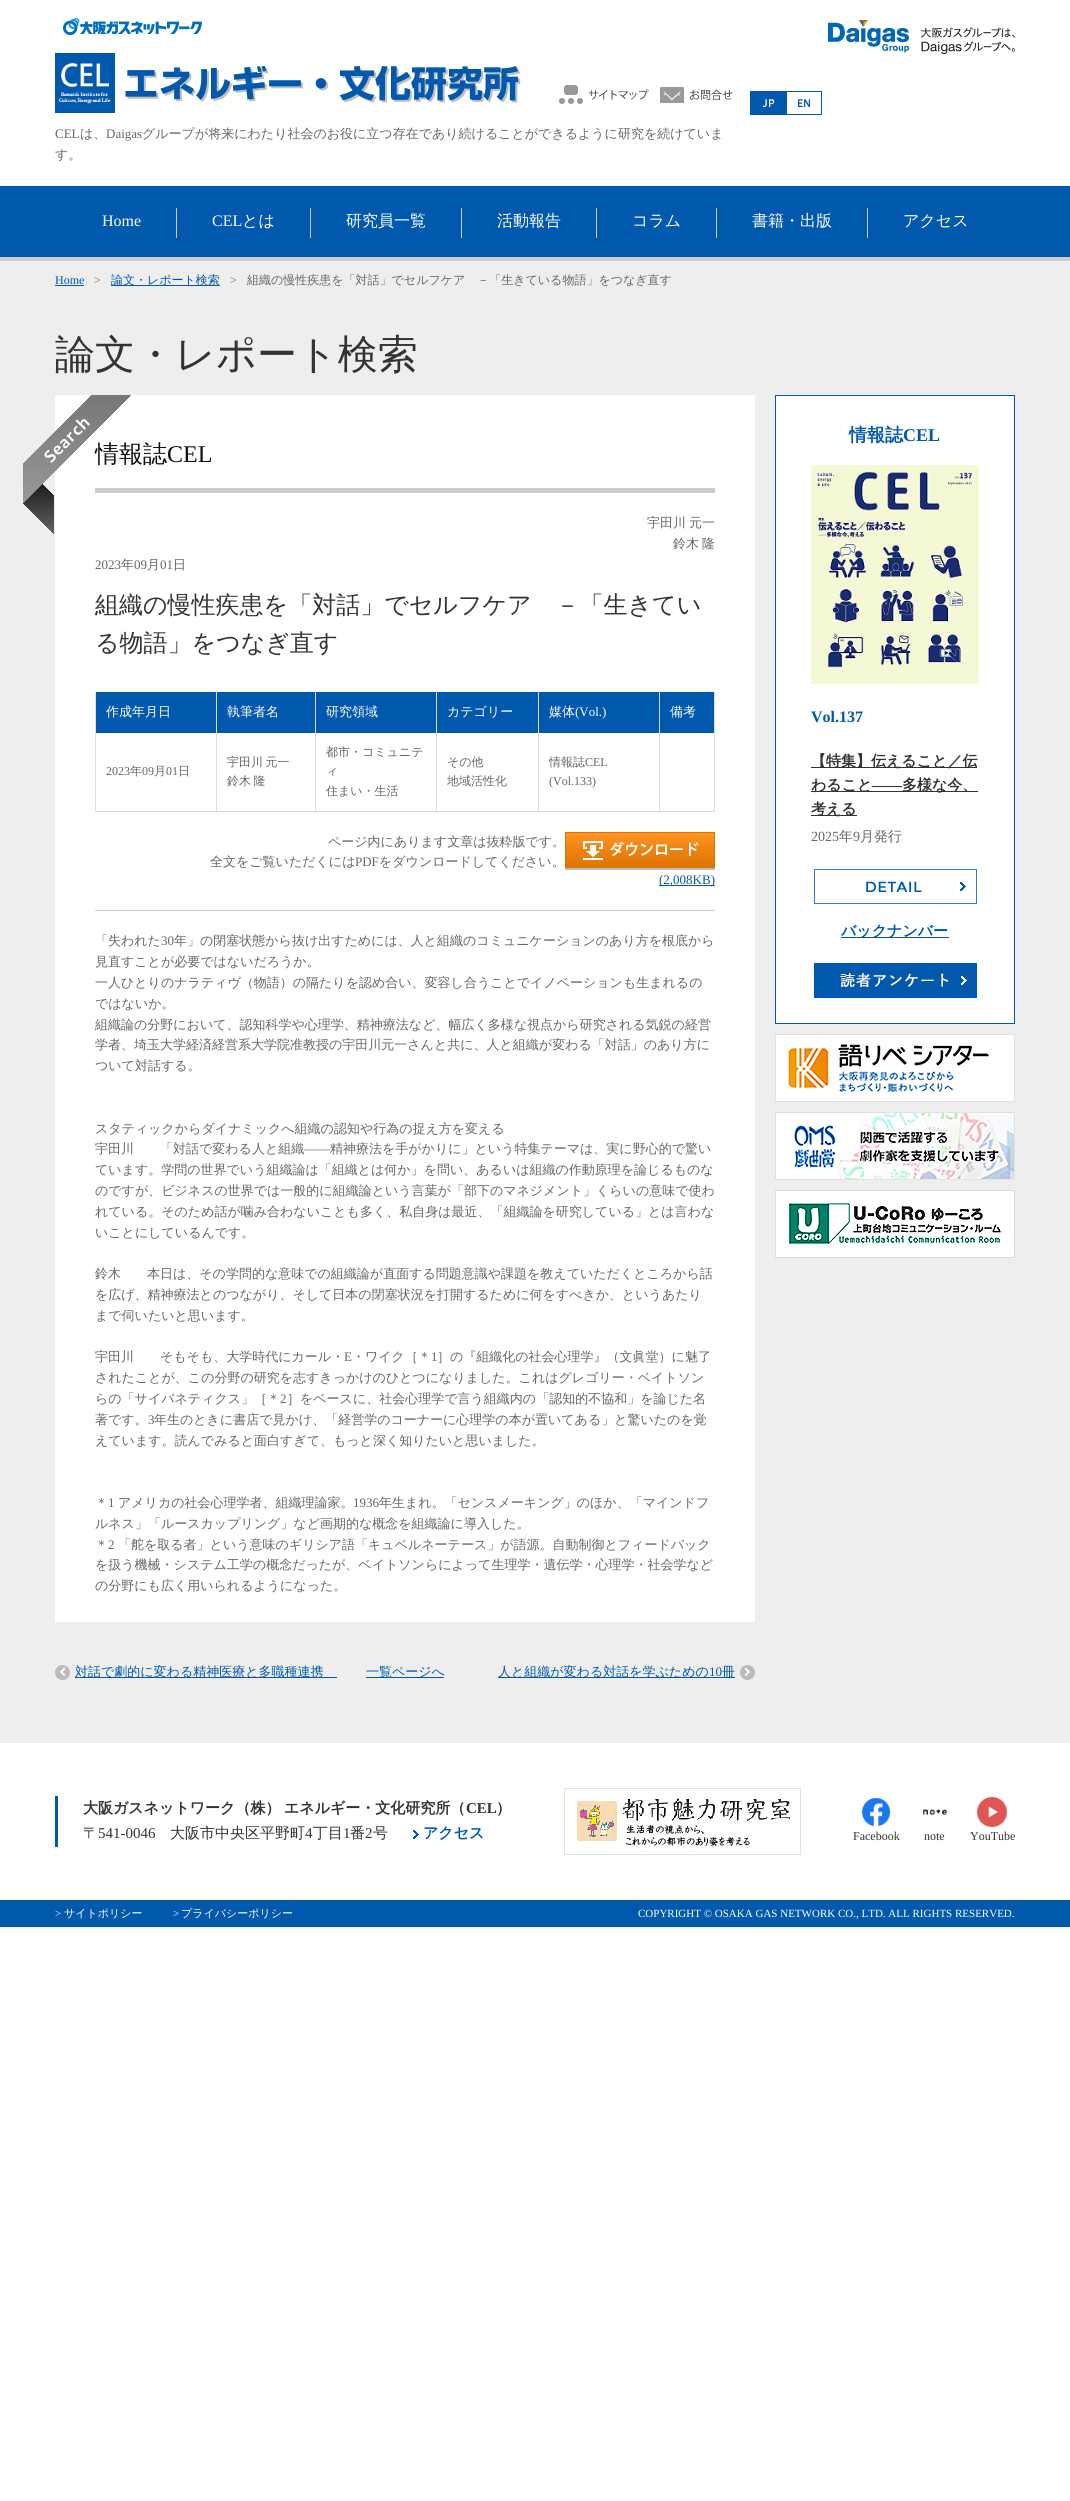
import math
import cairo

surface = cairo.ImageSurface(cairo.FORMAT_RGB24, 1070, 2501)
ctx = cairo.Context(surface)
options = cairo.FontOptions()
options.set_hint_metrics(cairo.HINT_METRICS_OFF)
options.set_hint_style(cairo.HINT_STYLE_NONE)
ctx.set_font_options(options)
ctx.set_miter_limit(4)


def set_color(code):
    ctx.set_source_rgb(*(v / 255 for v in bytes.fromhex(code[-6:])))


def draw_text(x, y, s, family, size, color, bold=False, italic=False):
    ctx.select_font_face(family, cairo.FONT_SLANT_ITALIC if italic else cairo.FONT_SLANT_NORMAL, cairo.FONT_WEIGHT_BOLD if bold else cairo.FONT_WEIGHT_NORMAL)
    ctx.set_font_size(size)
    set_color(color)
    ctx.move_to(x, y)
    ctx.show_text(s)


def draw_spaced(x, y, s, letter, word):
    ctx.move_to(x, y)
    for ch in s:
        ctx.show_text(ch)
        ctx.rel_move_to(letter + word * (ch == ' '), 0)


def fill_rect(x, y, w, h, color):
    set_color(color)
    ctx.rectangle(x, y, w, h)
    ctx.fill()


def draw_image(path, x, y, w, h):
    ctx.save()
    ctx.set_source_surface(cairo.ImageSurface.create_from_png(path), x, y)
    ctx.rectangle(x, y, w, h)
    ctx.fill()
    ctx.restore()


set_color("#ffffff")
ctx.paint()
draw_image("assets/img1.png", 828, 20, 187, 34)
draw_image("assets/img2.png", 750, 91, 72, 24)
draw_image("assets/img3.png", 63, 18, 139, 17)
draw_image("assets/img4.png", 55, 53, 466, 60)
draw_image("assets/img5.png", 559, 85, 90, 19)
draw_image("assets/img6.png", 660, 87, 73, 16)
draw_text(55, 138, "CEL", "Liberation Serif", 13, "#666666")
draw_text(80, 138, "は、", "WenQuanYi Zen Hei Medium", 13, "#666666")
draw_text(106, 138, "Daigas", "Liberation Serif", 13, "#666666")
draw_text(142, 138, "グループが将来にわたり社会のお役に立つ存在であり続けることができるように研究を続けていま", "WenQuanYi Zen Hei Medium", 13, "#666666")
draw_text(55, 159, "す。", "WenQuanYi Zen Hei Medium", 13, "#666666")
fill_rect(0, 186, 1070, 71, "#0059ad")
fill_rect(0, 257, 1070, 4, "#cccccc")
fill_rect(176, 208, 1, 30, "#cccccc")
draw_text(102, 226, "Home", "Liberation Serif", 16, "#ffffff")
fill_rect(310, 208, 1, 30, "#cccccc")
draw_text(212, 226, "CEL", "Liberation Serif", 16, "#ffffff")
draw_text(242, 226, "とは", "WenQuanYi Zen Hei Medium", 16, "#ffffff")
fill_rect(461, 208, 1, 30, "#cccccc")
draw_text(346, 226, "研究員一覧", "WenQuanYi Zen Hei Medium", 16, "#ffffff")
fill_rect(596, 208, 1, 30, "#cccccc")
draw_text(497, 226, "活動報告", "WenQuanYi Zen Hei Medium", 16, "#ffffff")
fill_rect(716, 208, 1, 30, "#cccccc")
draw_text(632, 226, "コラム", "WenQuanYi Zen Hei Medium", 16, "#ffffff")
fill_rect(867, 208, 1, 30, "#cccccc")
draw_text(752, 226, "書籍・出版", "WenQuanYi Zen Hei Medium", 16, "#ffffff")
draw_text(903, 226, "アクセス", "WenQuanYi Zen Hei Medium", 16, "#ffffff")
fill_rect(0, 261, 1070, 1482, "#eeeeee")
draw_text(55, 284, "Home", "Liberation Serif", 12, "#0059ac")
fill_rect(55, 285, 29, 1, "#0059ac")
draw_text(94, 284, ">", "Liberation Serif", 12, "#666666")
fill_rect(111, 285, 109, 1, "#0059ac")
draw_text(111, 284, "論文・レポート検索", "WenQuanYi Zen Hei Medium", 12, "#0059ac")
draw_text(230, 284, ">", "Liberation Serif", 12, "#666666")
draw_text(247, 284, "組織の慢性疾患を「対話」でセルフケア　－「生きている物語」をつなぎ直す", "WenQuanYi Zen Hei Medium", 12, "#666666")
draw_text(55, 368, "論文・レポート検索", "WenQuanYi Zen Hei Medium", 40, "#333333")
fill_rect(55, 395, 700, 1227, "#ffffff")
fill_rect(95, 488, 620, 5, "#cccccc")
draw_text(95, 462, "情報誌", "WenQuanYi Zen Hei Medium", 24, "#101010")
draw_image("assets/img7.png", 23, 395, 108, 139)
draw_text(167, 462, "CEL", "Liberation Serif", 24, "#101010")
ctx.select_font_face("WenQuanYi Zen Hei Medium")
ctx.set_font_size(13)
set_color("#666666")
draw_spaced(647, 527, "宇田川 元一", 0, -1)
draw_spaced(673, 548, "鈴木 隆", 0, -1)
draw_text(95, 569, "2023", "Liberation Serif", 13, "#666666")
draw_text(121, 569, "年", "WenQuanYi Zen Hei Medium", 13, "#666666")
draw_text(134, 569, "09", "Liberation Serif", 13, "#666666")
draw_text(147, 569, "月", "WenQuanYi Zen Hei Medium", 13, "#666666")
draw_text(160, 569, "01", "Liberation Serif", 13, "#666666")
draw_text(173, 569, "日", "WenQuanYi Zen Hei Medium", 13, "#666666")
draw_text(95, 613, "組織の慢性疾患を「対話」でセルフケア　－「生きてい", "WenQuanYi Zen Hei Medium", 24, "#333333")
draw_text(95, 651, "る物語」をつなぎ直す", "WenQuanYi Zen Hei Medium", 24, "#333333")
fill_rect(95, 811, 620, 1, "#dddddd")
fill_rect(95, 692, 1, 120, "#dddddd")
fill_rect(96, 692, 120, 41, "#0059ad")
draw_text(106, 716, "作成年月日", "WenQuanYi Zen Hei Medium", 13, "#ffffff")
fill_rect(217, 692, 98, 41, "#0059ad")
draw_text(227, 716, "執筆者名", "WenQuanYi Zen Hei Medium", 13, "#ffffff")
fill_rect(316, 692, 120, 41, "#0059ad")
draw_text(326, 716, "研究領域", "WenQuanYi Zen Hei Medium", 13, "#ffffff")
fill_rect(437, 692, 101, 41, "#0059ad")
draw_text(447, 716, "カテゴリー", "WenQuanYi Zen Hei Medium", 13, "#ffffff")
fill_rect(539, 692, 120, 41, "#0059ad")
draw_text(549, 716, "媒体", "WenQuanYi Zen Hei Medium", 13, "#ffffff")
draw_text(575, 716, "(Vol.)", "Liberation Serif", 13, "#ffffff")
fill_rect(660, 692, 54, 41, "#0059ad")
draw_text(670, 716, "備考", "WenQuanYi Zen Hei Medium", 13, "#ffffff")
fill_rect(216, 692, 1, 120, "#dddddd")
draw_text(106, 775, "2023", "Liberation Serif", 12, "#666666")
draw_text(130, 775, "年", "WenQuanYi Zen Hei Medium", 12, "#666666")
draw_text(142, 775, "09", "Liberation Serif", 12, "#666666")
draw_text(154, 775, "月", "WenQuanYi Zen Hei Medium", 12, "#666666")
draw_text(166, 775, "01", "Liberation Serif", 12, "#666666")
draw_text(178, 775, "日", "WenQuanYi Zen Hei Medium", 12, "#666666")
fill_rect(315, 692, 1, 120, "#dddddd")
set_color("#666666")
draw_spaced(227, 766, "宇田川 元一", 0, -1)
draw_spaced(227, 785, "鈴木 隆", 0, -1)
fill_rect(436, 692, 1, 120, "#dddddd")
draw_text(326, 756, "都市・コミュニテ", "WenQuanYi Zen Hei Medium", 12, "#666666")
draw_text(326, 775, "ィ", "WenQuanYi Zen Hei Medium", 12, "#666666")
draw_text(326, 795, "住まい・生活", "WenQuanYi Zen Hei Medium", 12, "#666666")
fill_rect(538, 692, 1, 120, "#dddddd")
draw_text(447, 766, "その他", "WenQuanYi Zen Hei Medium", 12, "#666666")
draw_text(447, 785, "地域活性化", "WenQuanYi Zen Hei Medium", 12, "#666666")
fill_rect(659, 692, 1, 120, "#dddddd")
draw_text(549, 766, "情報誌", "WenQuanYi Zen Hei Medium", 12, "#666666")
draw_text(585, 766, "CEL", "Liberation Serif", 12, "#666666")
draw_text(549, 785, "(Vol.133)", "Liberation Serif", 12, "#666666")
fill_rect(714, 692, 1, 120, "#dddddd")
fill_rect(95, 910, 620, 1, "#cccccc")
draw_text(328, 846, "ページ内にあります文章は抜粋版です。", "WenQuanYi Zen Hei Medium", 13, "#666666")
draw_text(210, 866, "全文をご覧いただくには", "WenQuanYi Zen Hei Medium", 13, "#666666")
draw_text(355, 866, "PDF", "Liberation Serif", 13, "#666666")
draw_text(379, 866, "をダウンロードしてください。", "WenQuanYi Zen Hei Medium", 13, "#666666")
draw_image("assets/img8.png", 565, 832, 150, 38)
fill_rect(659, 885, 56, 1, "#0059ac")
draw_text(659, 884, "(2,008KB)", "Liberation Serif", 13, "#0059ac")
draw_text(95, 945, "「失われた", "WenQuanYi Zen Hei Medium", 13, "#666666")
draw_text(161, 945, "30", "Liberation Serif", 13, "#666666")
draw_text(174, 945, "年」の閉塞状態から抜け出すためには、人と組織のコミュニケーションのあり方を根底から", "WenQuanYi Zen Hei Medium", 13, "#666666")
draw_text(95, 966, "見直すことが必要ではないだろうか。", "WenQuanYi Zen Hei Medium", 13, "#666666")
draw_text(95, 987, "一人ひとりのナラティヴ（物語）の隔たりを認め合い、変容し合うことでイノベーションも生まれるの", "WenQuanYi Zen Hei Medium", 13, "#666666")
draw_text(95, 1008, "ではないか。", "WenQuanYi Zen Hei Medium", 13, "#666666")
draw_text(95, 1029, "組織論の分野において、認知科学や心理学、精神療法など、幅広く多様な視点から研究される気鋭の経営", "WenQuanYi Zen Hei Medium", 13, "#666666")
draw_text(95, 1049, "学者、埼玉大学経済経営系大学院准教授の宇田川元一さんと共に、人と組織が変わる「対話」のあり方に", "WenQuanYi Zen Hei Medium", 13, "#666666")
draw_text(95, 1070, "ついて対話する。", "WenQuanYi Zen Hei Medium", 13, "#666666")
draw_text(95, 1133, "スタティックからダイナミックへ組織の認知や行為の捉え方を変える", "WenQuanYi Zen Hei Medium", 13, "#666666")
draw_text(95, 1153, "宇田川　　「対話で変わる人と組織", "WenQuanYi Zen Hei Medium", 13, "#666666")
draw_text(304, 1153, "――", "Liberation Serif", 13, "#666666")
draw_text(330, 1153, "精神療法を手がかりに」という特集テーマは、実に野心的で驚い", "WenQuanYi Zen Hei Medium", 13, "#666666")
draw_text(95, 1174, "ています。学問の世界でいう組織論は「組織とは何か」を問い、あるいは組織の作動原理を論じるものな", "WenQuanYi Zen Hei Medium", 13, "#666666")
draw_text(95, 1195, "のですが、ビジネスの世界では一般的に組織論という言葉が「部下のマネジメント」くらいの意味で使わ", "WenQuanYi Zen Hei Medium", 13, "#666666")
draw_text(95, 1216, "れている。そのため話が噛み合わないことも多く、私自身は最近、「組織論を研究している」とは言わな", "WenQuanYi Zen Hei Medium", 13, "#666666")
draw_text(95, 1237, "いことにしているんです。", "WenQuanYi Zen Hei Medium", 13, "#666666")
draw_text(95, 1278, "鈴木　　本日は、その学問的な意味での組織論が直面する問題意識や課題を教えていただくところから話", "WenQuanYi Zen Hei Medium", 13, "#666666")
draw_text(95, 1299, "を広げ、精神療法とのつながり、そして日本の閉塞状況を打開するために何をすべきか、というあたり", "WenQuanYi Zen Hei Medium", 13, "#666666")
draw_text(95, 1320, "まで伺いたいと思います。", "WenQuanYi Zen Hei Medium", 13, "#666666")
draw_text(95, 1361, "宇田川　　そもそも、大学時代にカール・", "WenQuanYi Zen Hei Medium", 13, "#666666")
draw_text(344, 1361, "E", "Liberation Serif", 13, "#666666")
draw_text(352, 1361, "・ワイク［＊", "WenQuanYi Zen Hei Medium", 13, "#666666")
draw_text(431, 1361, "1", "Liberation Serif", 13, "#666666")
draw_text(437, 1361, "］の『組織化の社会心理学』（文眞堂）に魅了", "WenQuanYi Zen Hei Medium", 13, "#666666")
draw_text(95, 1382, "されたことが、この分野の研究を志すきっかけのひとつになりました。これはグレゴリー・ベイトソン", "WenQuanYi Zen Hei Medium", 13, "#666666")
draw_text(95, 1403, "らの「サイバネティクス」［＊", "WenQuanYi Zen Hei Medium", 13, "#666666")
draw_text(280, 1403, "2", "Liberation Serif", 13, "#666666")
draw_text(287, 1403, "］をベースに、社会心理学で言う組織内の「認知的不協和」を論じた名", "WenQuanYi Zen Hei Medium", 13, "#666666")
draw_text(95, 1424, "著です。", "WenQuanYi Zen Hei Medium", 13, "#666666")
draw_text(148, 1424, "3", "Liberation Serif", 13, "#666666")
draw_text(154, 1424, "年生のときに書店で見かけ、「経営学のコーナーに心理学の本が置いてある」と驚いたのを覚", "WenQuanYi Zen Hei Medium", 13, "#666666")
draw_text(95, 1445, "えています。読んでみると面白すぎて、もっと深く知りたいと思いました。", "WenQuanYi Zen Hei Medium", 13, "#666666")
draw_text(95, 1507, "＊", "WenQuanYi Zen Hei Medium", 13, "#666666")
draw_text(108, 1507, "1", "Liberation Serif", 13, "#666666")
draw_text(118, 1507, "アメリカの社会心理学者、組織理論家。", "WenQuanYi Zen Hei Medium", 13, "#666666")
draw_text(353, 1507, "1936", "Liberation Serif", 13, "#666666")
draw_text(379, 1507, "年生まれ。「センスメーキング」のほか、「マインドフ", "WenQuanYi Zen Hei Medium", 13, "#666666")
draw_text(95, 1528, "ルネス」「ルースカップリング」など画期的な概念を組織論に導入した。", "WenQuanYi Zen Hei Medium", 13, "#666666")
draw_text(95, 1549, "＊", "WenQuanYi Zen Hei Medium", 13, "#666666")
draw_text(108, 1549, "2", "Liberation Serif", 13, "#666666")
draw_text(118, 1549, "「舵を取る者」という意味のギリシア語「キュベルネーテース」が語源。自動制御とフィードバック", "WenQuanYi Zen Hei Medium", 13, "#666666")
draw_text(95, 1569, "を扱う機械・システム工学の概念だったが、ベイトソンらによって生理学・遺伝学・心理学・社会学など", "WenQuanYi Zen Hei Medium", 13, "#666666")
draw_text(95, 1590, "の分野にも広く用いられるようになった。", "WenQuanYi Zen Hei Medium", 13, "#666666")
set_color("#bbbbbb")
ctx.new_path()
ctx.arc(62.5, 1672.5, 7.5, 0, 2 * math.pi)
ctx.fill()
fill_rect(75, 1677, 262, 1, "#0059ac")
draw_text(75, 1676, "対話で劇的に変わる精神医療と多職種連携", "WenQuanYi Zen Hei Medium", 13, "#0059ac")
set_color("#ffffff")
ctx.new_path()
ctx.move_to(64, 1676)
ctx.line_to(60, 1672)
ctx.line_to(61, 1670.5)
ctx.line_to(65.5, 1675)
ctx.close_path()
ctx.fill()
ctx.new_path()
ctx.move_to(61, 1673.5)
ctx.line_to(60, 1672)
ctx.line_to(64, 1667.5)
ctx.line_to(65.5, 1669)
ctx.close_path()
ctx.fill()
fill_rect(366, 1677, 78, 1, "#0059ac")
draw_text(366, 1676, "一覧ページへ", "WenQuanYi Zen Hei Medium", 13, "#0059ac")
fill_rect(498, 1677, 237, 1, "#0059ac")
draw_text(498, 1676, "人と組織が変わる対話を学ぶための", "WenQuanYi Zen Hei Medium", 13, "#0059ac")
draw_text(709, 1676, "10", "Liberation Serif", 13, "#0059ac")
draw_text(722, 1676, "冊", "WenQuanYi Zen Hei Medium", 13, "#0059ac")
set_color("#bbbbbb")
ctx.new_path()
ctx.arc(747.5, 1672.5, 7.5, 0, 2 * math.pi)
ctx.fill()
set_color("#ffffff")
ctx.new_path()
ctx.move_to(746, 1667.5)
ctx.line_to(750, 1672)
ctx.line_to(749, 1673.5)
ctx.line_to(744.5, 1669)
ctx.close_path()
ctx.fill()
ctx.new_path()
ctx.move_to(749, 1670.5)
ctx.line_to(750, 1672)
ctx.line_to(746, 1676)
ctx.line_to(744.5, 1675)
ctx.close_path()
ctx.fill()
ctx.rectangle(775.5, 395.5, 239, 628)
ctx.fill_preserve()
set_color("#0059ad")
ctx.set_line_width(1)
ctx.stroke()
draw_text(849, 441, "情報誌", "WenQuanYi Zen Hei", 18, "#0059ac", bold=True)
draw_text(903, 441, "CEL", "Liberation Serif", 18, "#0059ac", bold=True)
draw_image("assets/img9.png", 811, 465, 168, 219)
draw_text(811, 722, "Vol.137", "Liberation Serif", 16, "#0059ac", bold=True)
fill_rect(811, 767, 166, 1, "#333333")
draw_text(811, 766, "【特集】伝えること／伝", "WenQuanYi Zen Hei", 15, "#333333", bold=True)
fill_rect(811, 791, 167, 1, "#333333")
draw_text(811, 790, "わること", "WenQuanYi Zen Hei", 15, "#333333", bold=True)
draw_text(872, 790, "――", "Liberation Serif", 15, "#333333", bold=True)
draw_text(902, 790, "多様な今、", "WenQuanYi Zen Hei", 15, "#333333", bold=True)
fill_rect(811, 815, 46, 1, "#333333")
draw_text(811, 814, "考える", "WenQuanYi Zen Hei", 15, "#333333", bold=True)
draw_text(811, 841, "2025", "Liberation Serif", 14, "#666666")
draw_text(839, 841, "年", "WenQuanYi Zen Hei Medium", 14, "#666666")
draw_text(853, 841, "9", "Liberation Serif", 14, "#666666")
draw_text(860, 841, "月発行", "WenQuanYi Zen Hei Medium", 14, "#666666")
draw_image("assets/img10.png", 814, 869, 163, 35)
fill_rect(841, 937, 108, 1, "#0059ac")
draw_text(841, 936, "バックナンバー", "WenQuanYi Zen Hei", 15, "#0059ac", bold=True)
draw_image("assets/img11.png", 814, 963, 163, 35)
draw_image("assets/img12.png", 775, 1034, 240, 68)
draw_image("assets/img13.png", 775, 1112, 240, 68)
draw_image("assets/img14.png", 775, 1190, 240, 68)
fill_rect(55, 1796, 3, 51, "#0059ad")
set_color("#333333")
draw_spaced(83, 1813, "大阪ガスネットワーク（株） エネルギー・文化研究所（", 0, -1)
draw_text(466, 1813, "CEL", "Liberation Serif", 15, "#333333", bold=True)
draw_text(496, 1813, "）", "WenQuanYi Zen Hei", 15, "#333333", bold=True)
draw_text(83, 1838, "〒", "WenQuanYi Zen Hei Medium", 15, "#333333")
draw_text(98, 1838, "541-0046", "Liberation Serif", 15, "#333333")
draw_text(170, 1838, "大阪市中央区平野町", "WenQuanYi Zen Hei Medium", 15, "#333333")
draw_text(305, 1838, "4", "Liberation Serif", 15, "#333333")
draw_text(313, 1838, "丁目", "WenQuanYi Zen Hei Medium", 15, "#333333")
draw_text(343, 1838, "1", "Liberation Serif", 15, "#333333")
draw_text(350, 1838, "番", "WenQuanYi Zen Hei Medium", 15, "#333333")
draw_text(365, 1838, "2", "Liberation Serif", 15, "#333333")
draw_text(373, 1838, "号", "WenQuanYi Zen Hei Medium", 15, "#333333")
draw_image("assets/img15.png", 413, 1830, 6, 9)
draw_text(423, 1838, "アクセス", "WenQuanYi Zen Hei", 15, "#0059ac", bold=True)
draw_image("assets/img16.png", 564, 1788, 237, 67)
draw_image("assets/img17.png", 861, 1798, 30, 29)
draw_text(853, 1840, "Facebook", "Liberation Serif", 12, "#333333")
draw_image("assets/img18.png", 923, 1809, 24, 6)
draw_text(924, 1840, "note", "Liberation Serif", 12, "#333333")
draw_image("assets/img19.png", 977, 1797, 30, 30)
draw_text(970, 1840, "YouTube", "Liberation Serif", 12, "#333333")
fill_rect(0, 1900, 1070, 27, "#0059ac")
draw_text(55, 1917, ">", "Liberation Serif", 11, "#ffffff")
draw_text(64, 1917, "サイトポリシー", "WenQuanYi Zen Hei Medium", 11, "#ffffff")
draw_text(173, 1917, ">", "Liberation Serif", 11, "#ffffff")
draw_text(181, 1917, "プライバシーポリシー", "WenQuanYi Zen Hei Medium", 11, "#ffffff")
draw_text(638, 1917, "COPYRIGHT © OSAKA GAS NETWORK CO., LTD. ALL RIGHTS RESERVED.", "Liberation Serif", 11, "#ffffff")
surface.write_to_png("output.png")
